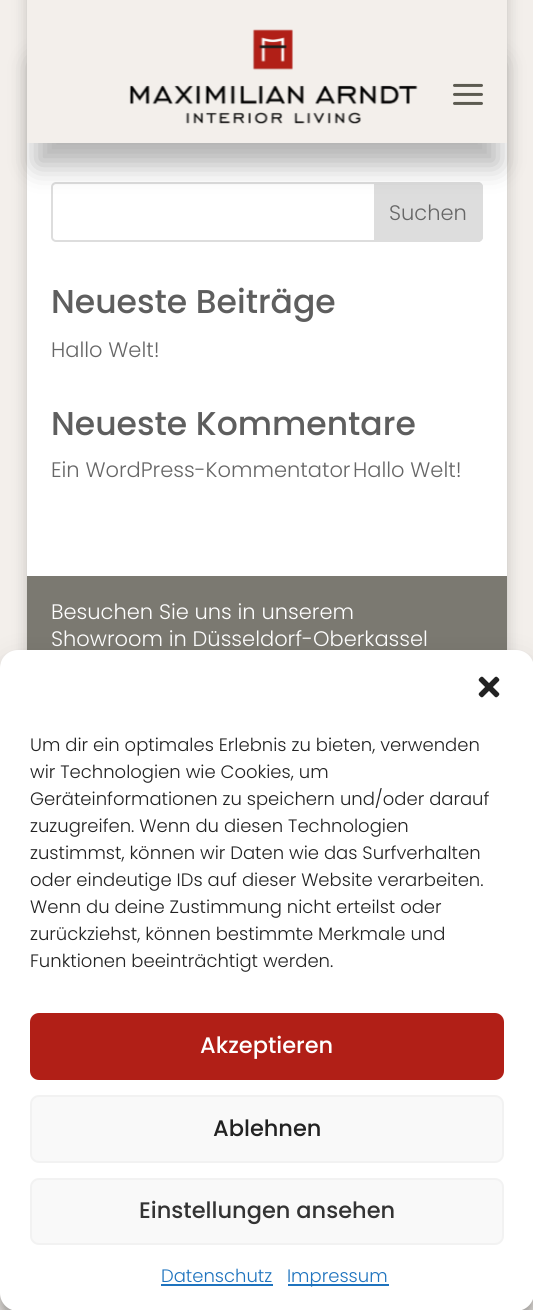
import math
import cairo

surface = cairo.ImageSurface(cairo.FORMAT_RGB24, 533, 1310)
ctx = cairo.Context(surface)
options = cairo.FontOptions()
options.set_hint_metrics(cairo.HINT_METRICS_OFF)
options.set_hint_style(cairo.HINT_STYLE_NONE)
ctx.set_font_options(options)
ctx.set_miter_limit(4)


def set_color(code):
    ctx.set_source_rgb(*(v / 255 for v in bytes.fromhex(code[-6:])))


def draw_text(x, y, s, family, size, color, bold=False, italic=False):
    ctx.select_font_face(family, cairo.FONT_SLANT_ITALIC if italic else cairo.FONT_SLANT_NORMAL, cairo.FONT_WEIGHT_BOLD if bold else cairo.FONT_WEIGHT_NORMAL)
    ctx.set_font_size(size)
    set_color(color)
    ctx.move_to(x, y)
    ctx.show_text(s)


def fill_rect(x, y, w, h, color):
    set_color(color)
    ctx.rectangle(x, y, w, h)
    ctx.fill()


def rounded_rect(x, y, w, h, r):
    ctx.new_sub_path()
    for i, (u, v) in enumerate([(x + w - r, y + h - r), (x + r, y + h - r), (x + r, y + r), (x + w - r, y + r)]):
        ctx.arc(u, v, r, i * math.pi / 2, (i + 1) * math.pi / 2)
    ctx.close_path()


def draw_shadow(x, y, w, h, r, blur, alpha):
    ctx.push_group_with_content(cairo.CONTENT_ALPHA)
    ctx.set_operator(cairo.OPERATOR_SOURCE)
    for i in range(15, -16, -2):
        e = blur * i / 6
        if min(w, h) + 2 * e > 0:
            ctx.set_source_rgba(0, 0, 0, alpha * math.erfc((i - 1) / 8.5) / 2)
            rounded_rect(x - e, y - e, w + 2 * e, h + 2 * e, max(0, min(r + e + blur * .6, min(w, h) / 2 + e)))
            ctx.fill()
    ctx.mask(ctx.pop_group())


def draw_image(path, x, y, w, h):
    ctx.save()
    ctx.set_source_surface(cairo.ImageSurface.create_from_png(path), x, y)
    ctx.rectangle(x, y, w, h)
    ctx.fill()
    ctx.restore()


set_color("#f3efeb")
ctx.paint()
set_color("#000000")
draw_shadow(27, -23, 480, 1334, 0, 7.5, 0.2)
fill_rect(27, 143, 480, 433, "#ffffff")
rounded_rect(52, 183, 430, 58, 4)
set_color("#dddddd")
ctx.stroke()
ctx.new_path()
ctx.move_to(375, 183)
ctx.line_to(478, 183)
ctx.curve_to(480, 183, 482, 185, 482, 187)
ctx.line_to(482, 237)
ctx.curve_to(482, 239, 480, 241, 478, 241)
ctx.line_to(375, 241)
ctx.close_path()
ctx.fill_preserve()
ctx.stroke()
set_color("#000000")
draw_shadow(36, 63, 462, 102, 0, 13.5, 0.3)
fill_rect(27, 0, 480, 143, "#f3efeb")
draw_image("assets/img1.png", 129, 29, 289, 95)
draw_image("assets/img2.png", 453, 83, 30, 22)
draw_text(389, 220, "Suchen", "Poppins Light", 21, "#666666")
draw_text(51, 313, "Neueste Beiträge", "Poppins Medium", 33, "#5e5e5e")
draw_text(51, 357, "Hallo Welt!", "Poppins Light", 21, "#666666")
draw_text(51, 435, "Neueste Kommentare", "Poppins Medium", 33, "#5e5e5e")
draw_text(51, 477, "Ein WordPress-Kommentator", "Poppins Light", 21, "#666666")
draw_text(353, 477, "Hallo Welt!", "Poppins Light", 21, "#666666")
fill_rect(27, 576, 480, 74, "#7b7971")
draw_text(51, 619, "Besuchen Sie uns in unserem", "Poppins Light", 21, "#ffffff")
draw_text(51, 646, "Showroom in Düsseldorf-Oberkassel", "Poppins Light", 21, "#ffffff")
set_color("#000000")
draw_shadow(0, 659, 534, 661, 18, 4.5, 0.23)
draw_shadow(0, 665, 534, 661, 18, 15, 0.19)
set_color("#ffffff")
rounded_rect(0, 650, 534, 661, 18)
ctx.fill()
draw_image("assets/img3.png", 478, 676, 22, 22)
draw_text(30, 751, "Um dir ein optimales Erlebnis zu bieten, verwenden", "Poppins Light", 18, "#222222")
draw_text(30, 778, "wir Technologien wie Cookies, um", "Poppins Light", 18, "#222222")
draw_text(30, 805, "Geräteinformationen zu speichern und/oder darauf", "Poppins Light", 18, "#222222")
draw_text(30, 832, "zuzugreifen. Wenn du diesen Technologien", "Poppins Light", 18, "#222222")
draw_text(30, 859, "zustimmst, können wir Daten wie das Surfverhalten", "Poppins Light", 18, "#222222")
draw_text(30, 886, "oder eindeutige IDs auf dieser Website verarbeiten.", "Poppins Light", 18, "#222222")
draw_text(30, 913, "Wenn du deine Zustimmung nicht erteilst oder", "Poppins Light", 18, "#222222")
draw_text(30, 940, "zurückziehst, können bestimmte Merkmale und", "Poppins Light", 18, "#222222")
draw_text(30, 967, "Funktionen beeinträchtigt werden.", "Poppins Light", 18, "#222222")
set_color("#b11f17")
rounded_rect(31, 1014, 472, 65, 8)
ctx.fill_preserve()
ctx.stroke()
draw_text(200, 1053, "Akzeptieren", "Poppins Medium", 22.5, "#ffffff")
set_color("#f9f9f9")
rounded_rect(31, 1096, 472, 66, 8)
ctx.fill_preserve()
set_color("#f2f2f2")
ctx.stroke()
draw_text(213, 1136, "Ablehnen", "Poppins Medium", 22.5, "#222222")
set_color("#f9f9f9")
rounded_rect(31, 1179, 472, 65, 8)
ctx.fill_preserve()
set_color("#f2f2f2")
ctx.stroke()
draw_text(139, 1218, "Einstellungen ansehen", "Poppins Medium", 22.5, "#333333")
draw_text(161, 1282, "Datenschutz", "Poppins Light", 18, "#1e73be")
fill_rect(161, 1284, 112, 2, "#1e73be")
fill_rect(288, 1284, 101, 2, "#1e73be")
draw_text(287, 1282, "Impressum", "Poppins Light", 18, "#1e73be")
surface.write_to_png("output.png")
